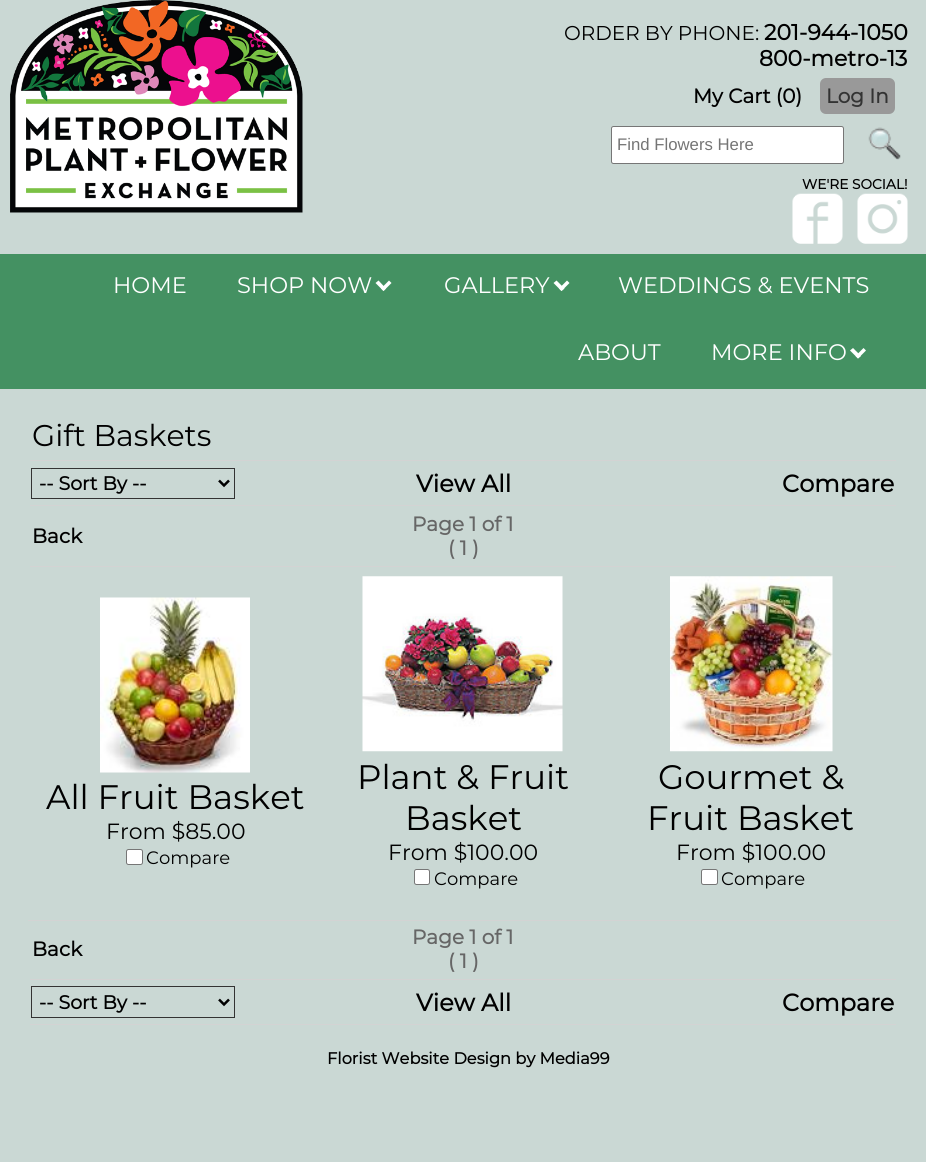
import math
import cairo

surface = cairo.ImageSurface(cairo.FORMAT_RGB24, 926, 1162)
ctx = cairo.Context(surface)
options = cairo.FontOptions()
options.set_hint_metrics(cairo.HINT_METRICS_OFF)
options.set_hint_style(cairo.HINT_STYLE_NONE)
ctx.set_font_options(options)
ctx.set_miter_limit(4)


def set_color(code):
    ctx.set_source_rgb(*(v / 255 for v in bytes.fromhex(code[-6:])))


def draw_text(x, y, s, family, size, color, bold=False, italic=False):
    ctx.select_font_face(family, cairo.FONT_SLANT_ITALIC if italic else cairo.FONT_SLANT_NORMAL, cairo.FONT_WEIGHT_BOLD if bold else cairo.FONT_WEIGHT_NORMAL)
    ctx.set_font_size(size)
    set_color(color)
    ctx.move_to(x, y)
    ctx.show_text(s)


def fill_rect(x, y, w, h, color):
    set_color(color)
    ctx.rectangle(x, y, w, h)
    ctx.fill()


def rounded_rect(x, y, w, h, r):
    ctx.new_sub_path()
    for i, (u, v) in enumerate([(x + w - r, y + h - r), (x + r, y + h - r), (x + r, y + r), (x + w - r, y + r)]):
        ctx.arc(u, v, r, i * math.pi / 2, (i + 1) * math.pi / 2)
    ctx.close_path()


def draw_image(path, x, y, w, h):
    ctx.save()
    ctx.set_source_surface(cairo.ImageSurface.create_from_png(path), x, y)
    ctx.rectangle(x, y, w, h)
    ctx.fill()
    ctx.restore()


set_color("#cad8d4")
ctx.paint()
draw_image("assets/img1.png", 10, 0, 293, 213)
draw_text(564, 40, "ORDER BY PHONE:", "Montserrat", 20, "#000000")
draw_text(764, 40, "201-944-1050", "Montserrat", 22, "#000000", bold=True)
draw_text(759, 66, "800-metro-13", "Montserrat", 22, "#000000", bold=True)
draw_text(693, 103, "My Cart (0)", "Montserrat", 20, "#000000", bold=True)
set_color("#999999")
rounded_rect(820, 78, 75, 36, 6)
ctx.fill()
draw_text(826, 103, "Log In", "Montserrat", 20, "#333333", bold=True)
set_color("#ffffff")
rounded_rect(611.5, 126.5, 232, 37, 2)
ctx.fill_preserve()
set_color("#767676")
ctx.set_line_width(1)
ctx.stroke()
draw_text(617, 150, "Find Flowers Here", "Liberation Sans", 16.75, "#757575")
draw_image("assets/img2.png", 868, 127, 33, 33)
draw_text(802, 189, "WE'RE SOCIAL!", "Montserrat", 13.75, "#000000", bold=True)
draw_image("assets/img3.png", 792, 193, 51, 51)
draw_image("assets/img4.png", 857, 193, 51, 51)
fill_rect(0, 254, 926, 135, "#449162")
draw_text(113, 293, "HOME", "Montserrat", 22.5, "#ffffff")
draw_text(237, 293, "SHOP NOW", "Montserrat", 22.5, "#ffffff")
ctx.new_path()
ctx.move_to(389, 280.5)
ctx.line_to(391.5, 283)
ctx.line_to(383.5, 291)
ctx.line_to(381, 288.5)
ctx.close_path()
ctx.fill()
ctx.new_path()
ctx.move_to(378.5, 280.5)
ctx.line_to(386, 288.5)
ctx.line_to(383.5, 291)
ctx.line_to(375.5, 283)
ctx.close_path()
ctx.fill()
draw_text(444, 293, "GALLERY", "Montserrat", 22.5, "#ffffff")
ctx.new_path()
ctx.move_to(567, 280.5)
ctx.line_to(569.5, 283)
ctx.line_to(561.5, 291)
ctx.line_to(559, 288.5)
ctx.close_path()
ctx.fill()
ctx.new_path()
ctx.move_to(556.5, 280.5)
ctx.line_to(564.5, 288.5)
ctx.line_to(561.5, 291)
ctx.line_to(553.5, 283)
ctx.close_path()
ctx.fill()
draw_text(618, 293, "WEDDINGS & EVENTS", "Montserrat", 22.5, "#ffffff")
draw_text(578, 360, "ABOUT", "Montserrat", 22.5, "#ffffff")
draw_text(711, 360, "MORE INFO", "Montserrat", 22.5, "#ffffff")
ctx.new_path()
ctx.move_to(863.5, 348)
ctx.line_to(866, 350.5)
ctx.line_to(858, 358.5)
ctx.line_to(855.5, 356)
ctx.close_path()
ctx.fill()
ctx.new_path()
ctx.move_to(853, 348)
ctx.line_to(861, 356)
ctx.line_to(858, 358.5)
ctx.line_to(850, 350.5)
ctx.close_path()
ctx.fill()
draw_text(32, 446, "Gift Baskets", "Montserrat", 30, "#000000")
fill_rect(30, 460, 866, 1, "#d3d3d3")
ctx.rectangle(31.5, 468.5, 203, 30)
set_color("#333333")
ctx.stroke()
ctx.new_path()
ctx.move_to(219, 480.5)
ctx.line_to(224, 485.5)
ctx.line_to(229, 480.5)
set_color("#000000")
ctx.set_line_width(2.5)
ctx.stroke()
draw_text(39, 490, "-- Sort By --", "Montserrat", 19, "#000000", bold=True)
draw_text(416, 492, "View All", "Montserrat", 24, "#000000", bold=True)
draw_text(782, 492, "Compare", "Montserrat", 24, "#000000", bold=True)
fill_rect(30, 505, 866, 1, "#d3d3d3")
draw_text(32, 543, "Back", "Montserrat", 20, "#000000", bold=True)
draw_text(412, 531, "Page 1 of 1", "Montserrat", 20, "#666666", bold=True)
draw_text(448, 555, "( 1 )", "Montserrat", 20, "#666666", bold=True)
fill_rect(30, 566, 866, 1, "#d3d3d3")
draw_image("assets/img5.png", 100, 597, 150, 176)
draw_text(46, 809, "All Fruit Basket", "Montserrat", 34, "#000000")
draw_text(106, 839, "From $85.00", "Montserrat", 22, "#000000")
set_color("#ffffff")
rounded_rect(126.5, 849.5, 16, 15, 2)
ctx.fill_preserve()
set_color("#767676")
ctx.set_line_width(1)
ctx.stroke()
draw_text(146, 864, "Compare", "Montserrat", 18, "#000000")
draw_image("assets/img6.png", 362, 576, 201, 176)
draw_text(357, 789, "Plant & Fruit", "Montserrat", 34, "#000000")
draw_text(405, 830, "Basket", "Montserrat", 34, "#000000")
draw_text(388, 860, "From $100.00", "Montserrat", 22, "#000000")
set_color("#ffffff")
rounded_rect(414.5, 869.5, 15, 15, 2)
ctx.fill_preserve()
set_color("#767676")
ctx.stroke()
draw_text(434, 885, "Compare", "Montserrat", 18, "#000000")
draw_image("assets/img7.png", 670, 576, 163, 176)
draw_text(658, 789, "Gourmet &", "Montserrat", 34, "#000000")
draw_text(647, 830, "Fruit Basket", "Montserrat", 34, "#000000")
draw_text(676, 860, "From $100.00", "Montserrat", 22, "#000000")
set_color("#ffffff")
rounded_rect(701.5, 869.5, 16, 15, 2)
ctx.fill_preserve()
set_color("#767676")
ctx.stroke()
draw_text(721, 885, "Compare", "Montserrat", 18, "#000000")
fill_rect(28, 920, 871, 1, "#d3d3d3")
draw_text(32, 956, "Back", "Montserrat", 20, "#000000", bold=True)
draw_text(412, 944, "Page 1 of 1", "Montserrat", 20, "#666666", bold=True)
draw_text(448, 968, "( 1 )", "Montserrat", 20, "#666666", bold=True)
fill_rect(30, 979, 866, 1, "#d3d3d3")
ctx.rectangle(31.5, 986.5, 203, 31)
set_color("#333333")
ctx.stroke()
ctx.new_path()
ctx.move_to(219, 999.5)
ctx.line_to(224, 1004.5)
ctx.line_to(229, 999.5)
set_color("#000000")
ctx.set_line_width(2.5)
ctx.stroke()
draw_text(39, 1009, "-- Sort By --", "Montserrat", 19, "#000000", bold=True)
draw_text(416, 1011, "View All", "Montserrat", 24, "#000000", bold=True)
draw_text(782, 1011, "Compare", "Montserrat", 24, "#000000", bold=True)
fill_rect(30, 1024, 866, 1, "#d3d3d3")
draw_text(327, 1064, "Florist Website Design by Media99", "Montserrat", 16.25, "#000000", bold=True)
surface.write_to_png("output.png")
